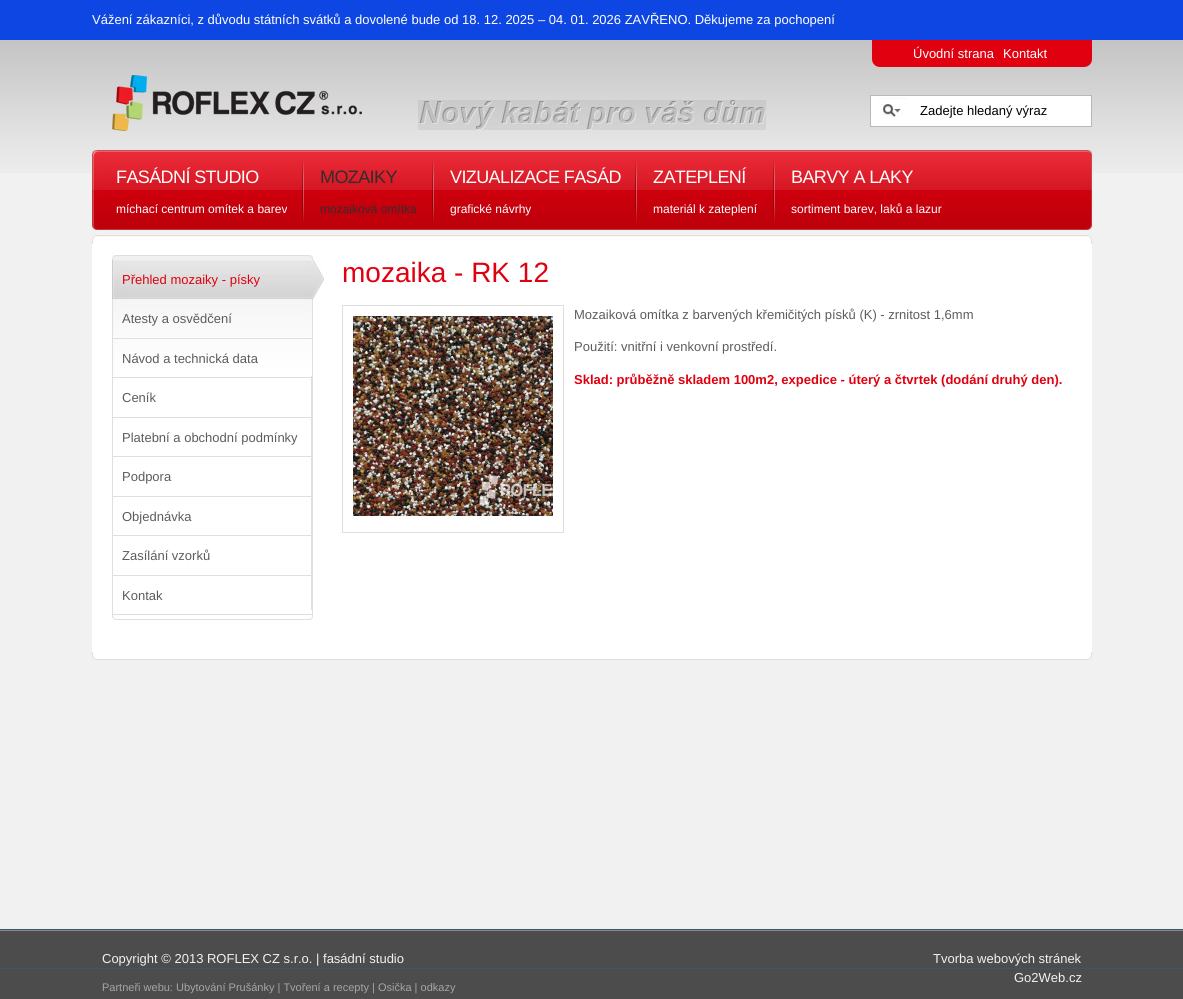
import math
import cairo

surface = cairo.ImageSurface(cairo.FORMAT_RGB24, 1183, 999)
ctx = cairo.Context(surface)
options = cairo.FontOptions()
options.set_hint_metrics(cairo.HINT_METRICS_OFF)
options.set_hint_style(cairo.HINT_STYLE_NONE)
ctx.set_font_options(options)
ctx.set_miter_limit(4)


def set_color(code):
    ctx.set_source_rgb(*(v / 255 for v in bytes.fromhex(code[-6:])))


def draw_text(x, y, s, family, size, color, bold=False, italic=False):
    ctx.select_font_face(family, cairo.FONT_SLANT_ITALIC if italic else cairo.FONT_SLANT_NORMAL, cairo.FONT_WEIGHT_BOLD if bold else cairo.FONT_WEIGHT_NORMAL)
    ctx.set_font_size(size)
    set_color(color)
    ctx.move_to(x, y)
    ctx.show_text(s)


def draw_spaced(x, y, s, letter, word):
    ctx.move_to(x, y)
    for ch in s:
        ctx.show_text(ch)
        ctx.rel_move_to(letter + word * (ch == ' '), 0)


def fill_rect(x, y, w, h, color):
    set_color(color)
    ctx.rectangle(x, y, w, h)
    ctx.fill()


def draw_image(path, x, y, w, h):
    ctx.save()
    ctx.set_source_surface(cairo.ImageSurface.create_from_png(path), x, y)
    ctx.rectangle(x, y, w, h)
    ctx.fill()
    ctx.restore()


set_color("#f1f1f1")
ctx.paint()
draw_image("assets/img1.png", 0, 40, 1183, 133)
fill_rect(0, 0, 1183, 40, "#0d46e2")
draw_text(92, 24, "Vážení zákazníci, z důvodu státních svátků a dovolené bude od 18. 12. 2025 – 04. 01. 2026 ZAVŘENO. Děkujeme za pochopení", "Liberation Sans", 13, "#ffffff")
draw_image("assets/img2.png", 418, 100, 348, 30)
draw_image("assets/img3.png", 112, 75, 250, 56)
set_color("#e0000f")
ctx.new_path()
ctx.move_to(872, 40)
ctx.line_to(1092, 40)
ctx.line_to(1092, 59)
ctx.curve_to(1092, 63.5, 1088.5, 67, 1084, 67)
ctx.line_to(880, 67)
ctx.curve_to(875.5, 67, 872, 63.5, 872, 59)
ctx.close_path()
ctx.fill()
draw_text(913, 58, "Úvodní strana", "Liberation Sans", 13, "#ffffff")
draw_text(1003, 58, "Kontakt", "Liberation Sans", 13, "#ffffff")
ctx.rectangle(870.5, 95.5, 221, 31)
ctx.fill_preserve()
set_color("#b8b8b8")
ctx.set_line_width(1)
ctx.stroke()
draw_image("assets/img4.png", 878, 98, 30, 20)
draw_text(920, 115, "Zadejte hledaný výraz", "Liberation Sans", 13, "#000000")
draw_image("assets/img5.png", 92, 150, 1000, 80)
draw_image("assets/img6.png", 302, 158, 2, 70)
ctx.set_font_size(18)
set_color("#ffffff")
draw_spaced(116, 183, "FASÁDNÍ STUDIO", -0.6, 0)
draw_text(116, 213, "míchací centrum omítek a barev", "Liberation Sans", 12, "#ffffff")
draw_image("assets/img6.png", 432, 158, 2, 70)
ctx.set_font_size(18)
set_color("#2e2e2e")
draw_spaced(320, 183, "MOZAIKY", -0.6, 0)
draw_text(320, 213, "mozaiková omítka", "Liberation Sans", 12, "#2e2e2e")
draw_image("assets/img6.png", 635, 158, 2, 70)
ctx.set_font_size(18)
set_color("#ffffff")
draw_spaced(450, 183, "VIZUALIZACE FASÁD", -0.6, 0)
draw_text(450, 213, "grafické návrhy", "Liberation Sans", 12, "#ffffff")
draw_image("assets/img6.png", 773, 158, 2, 70)
ctx.set_font_size(18)
draw_spaced(653, 183, "ZATEPLENÍ", -0.6, 0)
draw_text(653, 213, "materiál k zateplení", "Liberation Sans", 12, "#ffffff")
ctx.set_font_size(18)
draw_spaced(791, 183, "BARVY A LAKY", -0.6, 0)
draw_text(791, 213, "sortiment barev, laků a lazur", "Liberation Sans", 12, "#ffffff")
fill_rect(92, 244, 1000, 408, "#ffffff")
draw_image("assets/img7.png", 92, 652, 1000, 8)
draw_image("assets/img8.png", 92, 235, 1000, 9)
draw_image("assets/img9.png", 112, 376, 201, 234)
draw_image("assets/img10.png", 112, 610, 201, 10)
draw_image("assets/img11.png", 112, 255, 201, 121)
draw_image("assets/img12.png", 112, 260, 212, 39)
draw_text(122, 284, "Přehled mozaiky - písky", "Liberation Sans", 13, "#e0000f")
fill_rect(113, 338, 199, 1, "#dfdfdf")
draw_text(122, 323, "Atesty a osvědčení", "Liberation Sans", 13, "#5c5c5c")
fill_rect(113, 377, 198, 1, "#dfdfdf")
draw_text(122, 363, "Návod a technická data", "Liberation Sans", 13, "#5c5c5c")
fill_rect(113, 417, 198, 1, "#dfdfdf")
draw_text(122, 402, "Ceník", "Liberation Sans", 13, "#5c5c5c")
fill_rect(113, 456, 198, 1, "#dfdfdf")
draw_text(122, 442, "Platební a obchodní podmínky", "Liberation Sans", 13, "#5c5c5c")
fill_rect(113, 496, 198, 1, "#dfdfdf")
draw_text(122, 481, "Podpora", "Liberation Sans", 13, "#5c5c5c")
fill_rect(113, 535, 198, 1, "#dfdfdf")
draw_text(122, 521, "Objednávka", "Liberation Sans", 13, "#5c5c5c")
fill_rect(113, 575, 198, 1, "#dfdfdf")
draw_text(122, 560, "Zasílání vzorků", "Liberation Sans", 13, "#5c5c5c")
fill_rect(113, 614, 199, 1, "#dfdfdf")
draw_text(122, 600, "Kontak", "Liberation Sans", 13, "#5c5c5c")
draw_text(342, 282, "mozaika - RK 12", "Liberation Sans", 28, "#e0000f")
ctx.rectangle(342.5, 305.5, 221, 227)
set_color("#dedede")
ctx.stroke()
draw_image("assets/img13.png", 353, 316, 200, 200)
draw_text(574, 319, "Mozaiková omítka z barvených křemičitých písků (K) - zrnitost 1,6mm", "Liberation Sans", 13, "#5c5c5c")
draw_text(574, 351, "Použití: vnitřní i venkovní prostředí.", "Liberation Sans", 13, "#5c5c5c")
draw_text(574, 384, "Sklad: průběžně skladem 100m2, expedice - úterý a čtvrtek (dodání druhý den).", "Liberation Sans", 13, "#e0000f", bold=True)
fill_rect(0, 969, 1183, 30, "#4c4c4c")
draw_image("assets/img14.png", 0, 929, 1183, 40)
draw_text(102, 963, "Copyright © 2013 ROFLEX CZ s.r.o. | fasádní studio", "Liberation Sans", 13, "#f1f1f1")
draw_text(933, 963, "Tvorba webových stránek", "Liberation Sans", 13, "#f1f1f1")
draw_text(1014, 982, "Go2Web.cz", "Liberation Sans", 13, "#f1f1f1")
draw_text(102, 991, "Partneři webu: Ubytování Prušánky | Tvoření a recepty | Osička | odkazy", "Liberation Sans", 11, "#a5a5a5")
surface.write_to_png("output.png")
